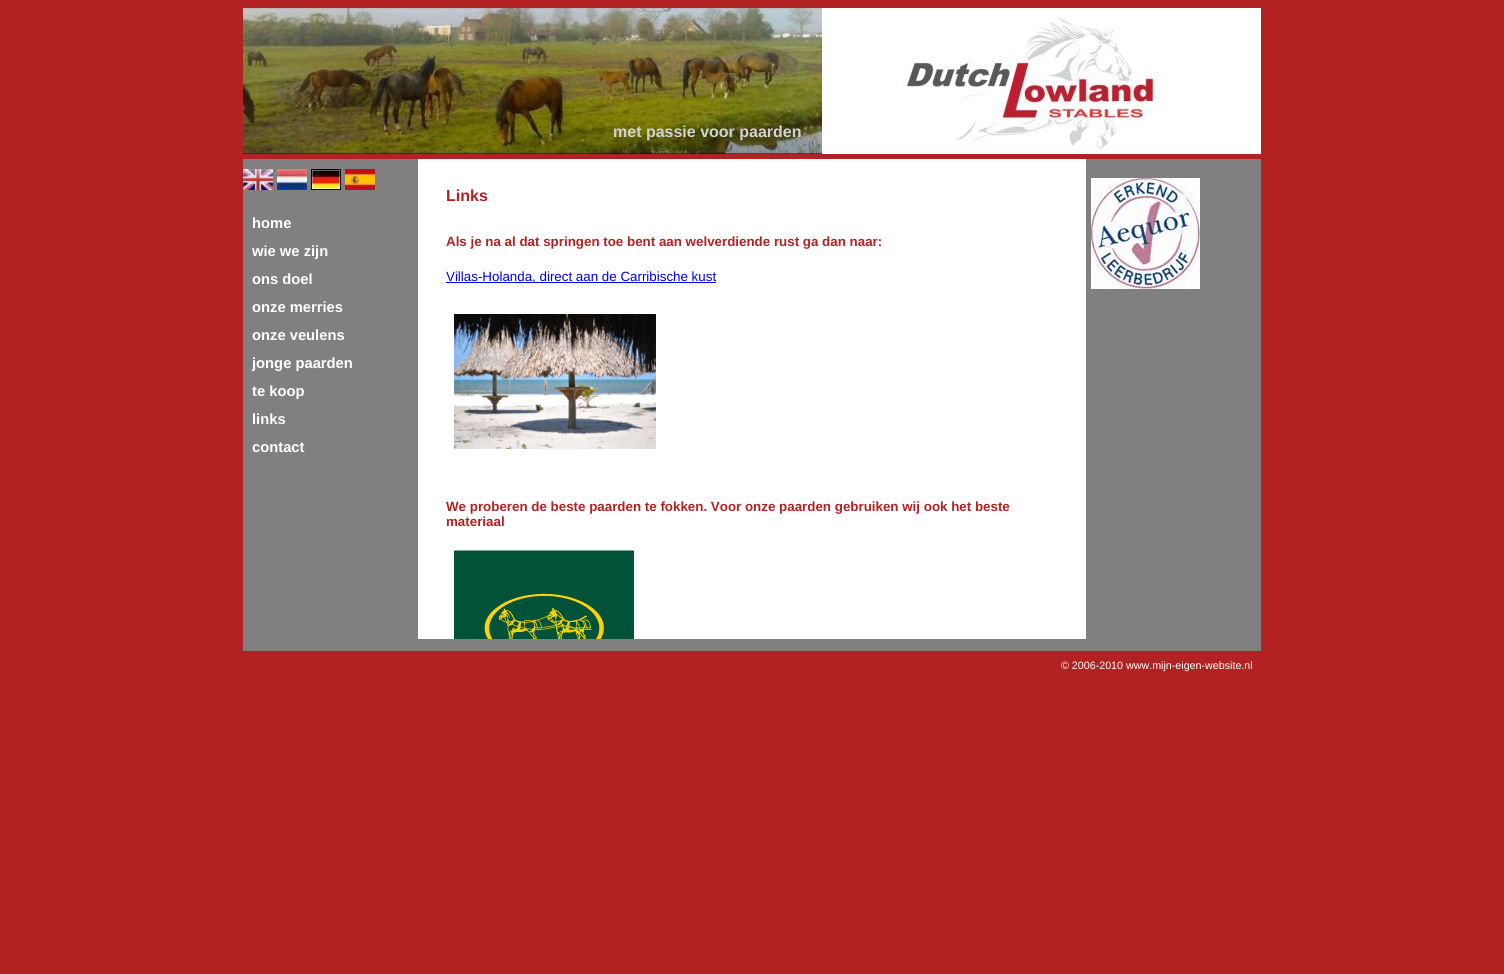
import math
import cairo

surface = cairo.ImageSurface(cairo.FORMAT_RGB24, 1504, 974)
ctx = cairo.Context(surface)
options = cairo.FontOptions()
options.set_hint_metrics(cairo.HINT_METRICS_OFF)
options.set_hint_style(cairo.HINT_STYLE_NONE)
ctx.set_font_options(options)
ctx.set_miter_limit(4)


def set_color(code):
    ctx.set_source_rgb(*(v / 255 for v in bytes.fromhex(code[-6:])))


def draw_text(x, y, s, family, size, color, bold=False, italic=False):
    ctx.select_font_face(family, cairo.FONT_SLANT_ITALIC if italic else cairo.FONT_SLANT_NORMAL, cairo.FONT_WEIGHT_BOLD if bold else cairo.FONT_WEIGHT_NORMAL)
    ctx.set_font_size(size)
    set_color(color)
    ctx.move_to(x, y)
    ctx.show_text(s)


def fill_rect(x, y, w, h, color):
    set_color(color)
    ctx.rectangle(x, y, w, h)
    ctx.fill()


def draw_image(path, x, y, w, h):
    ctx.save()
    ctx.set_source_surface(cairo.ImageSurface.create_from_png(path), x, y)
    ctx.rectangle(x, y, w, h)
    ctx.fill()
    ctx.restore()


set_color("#b22222")
ctx.paint()
fill_rect(822, 8, 439, 146, "#ffffff")
draw_image("assets/img1.png", 243, 8, 579, 146)
draw_text(613, 137, "met passie voor paarden", "Liberation Sans", 16, "#d3d3d3", bold=True)
draw_image("assets/img2.png", 901, 17, 256, 135)
fill_rect(243, 159, 1018, 492, "#808080")
draw_image("assets/img3.png", 243, 169, 30, 21)
draw_image("assets/img4.png", 277, 169, 30, 21)
draw_image("assets/img5.png", 311, 169, 30, 21)
draw_image("assets/img6.png", 345, 169, 30, 21)
draw_text(252, 228, "home", "Liberation Sans", 14.75, "#ffffff", bold=True)
draw_text(252, 256, "wie we zijn", "Liberation Sans", 14.75, "#ffffff", bold=True)
draw_text(252, 284, "ons doel", "Liberation Sans", 14.75, "#ffffff", bold=True)
draw_text(252, 312, "onze merries", "Liberation Sans", 14.75, "#ffffff", bold=True)
draw_text(252, 340, "onze veulens", "Liberation Sans", 14.75, "#ffffff", bold=True)
draw_text(252, 368, "jonge paarden", "Liberation Sans", 14.75, "#ffffff", bold=True)
draw_text(252, 396, "te koop", "Liberation Sans", 14.75, "#ffffff", bold=True)
draw_text(252, 424, "links", "Liberation Sans", 14.75, "#ffffff", bold=True)
draw_text(252, 452, "contact", "Liberation Sans", 14.75, "#ffffff", bold=True)
fill_rect(418, 159, 668, 480, "#ffffff")
draw_text(446, 201, "Links", "Liberation Sans", 16, "#b22222", bold=True)
draw_text(446, 246, "Als je na al dat springen toe bent aan welverdiende rust ga dan naar:", "Liberation Sans", 13.35, "#b22222", bold=True)
fill_rect(446, 282, 270, 1, "#0000ee")
draw_text(446, 281, "Villas-Holanda, direct aan de Carribische kust", "Liberation Sans", 13.35, "#0000ee")
draw_image("assets/img7.png", 454, 314, 202, 135)
draw_text(446, 511, "We proberen de beste paarden te fokken. Voor onze paarden gebruiken wij ook het beste", "Liberation Sans", 13.35, "#b22222", bold=True)
draw_text(446, 526, "materiaal", "Liberation Sans", 13.35, "#b22222", bold=True)
draw_image("assets/img8.png", 454, 550, 180, 89)
draw_image("assets/img9.png", 1091, 178, 109, 111)
draw_text(1061, 669, "© 2006-2010 www.mijn-eigen-website.nl", "Liberation Sans", 10.7, "#ffffff")
surface.write_to_png("output.png")
